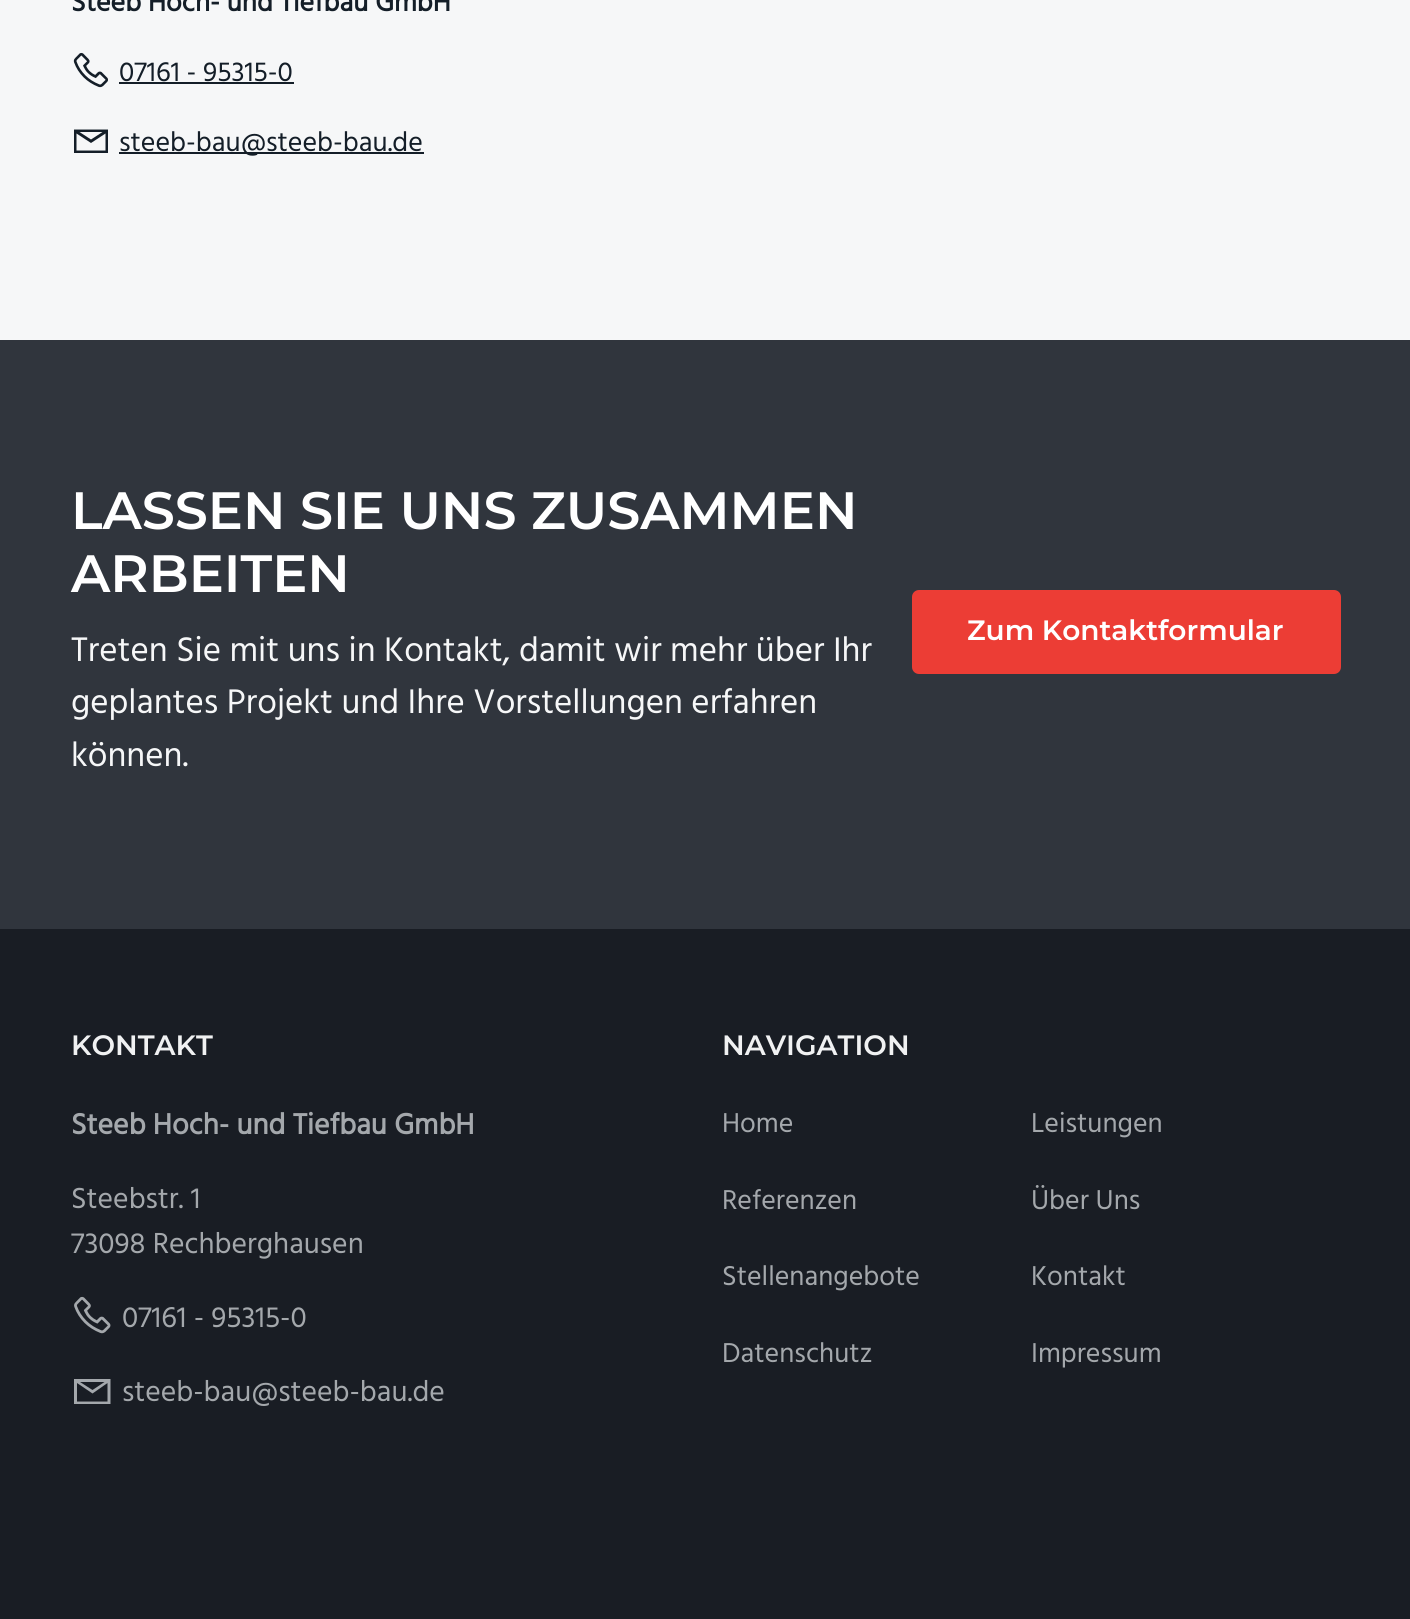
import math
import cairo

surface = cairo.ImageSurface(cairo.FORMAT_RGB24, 1410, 1619)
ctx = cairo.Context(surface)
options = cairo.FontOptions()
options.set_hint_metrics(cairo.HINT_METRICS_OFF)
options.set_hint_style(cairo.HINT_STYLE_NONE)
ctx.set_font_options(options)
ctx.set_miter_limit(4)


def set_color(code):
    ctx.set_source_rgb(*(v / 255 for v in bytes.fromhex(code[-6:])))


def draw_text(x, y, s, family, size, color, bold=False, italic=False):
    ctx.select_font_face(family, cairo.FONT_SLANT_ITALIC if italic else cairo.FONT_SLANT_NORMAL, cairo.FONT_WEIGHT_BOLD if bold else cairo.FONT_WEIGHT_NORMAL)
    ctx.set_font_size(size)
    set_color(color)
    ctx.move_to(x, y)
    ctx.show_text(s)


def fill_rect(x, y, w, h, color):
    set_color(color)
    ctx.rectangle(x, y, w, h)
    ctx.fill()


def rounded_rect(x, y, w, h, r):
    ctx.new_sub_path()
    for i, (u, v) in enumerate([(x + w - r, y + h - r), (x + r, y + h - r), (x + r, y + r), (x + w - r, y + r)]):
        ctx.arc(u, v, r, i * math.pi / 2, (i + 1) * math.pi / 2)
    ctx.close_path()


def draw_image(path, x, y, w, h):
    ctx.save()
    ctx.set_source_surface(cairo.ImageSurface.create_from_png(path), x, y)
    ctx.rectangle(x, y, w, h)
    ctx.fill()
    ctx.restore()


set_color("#f6f7f8")
ctx.paint()
draw_text(71, 11, "Steeb Hoch- und Tiefbau GmbH", "Hind", 28, "#141e28", bold=True)
draw_image("assets/img1.png", 73, 52, 35, 36)
draw_text(119, 81, "07161 - 95315-0", "Hind", 28, "#141e28")
fill_rect(119, 82, 175, 2, "#141e28")
ctx.new_path()
ctx.move_to(74, 129.5)
ctx.line_to(108, 129.5)
ctx.line_to(108, 153)
ctx.line_to(74, 153)
ctx.close_path()
ctx.move_to(79.5, 132)
ctx.line_to(91, 139.5)
ctx.line_to(102.5, 132)
ctx.close_path()
ctx.move_to(76.5, 133.5)
ctx.line_to(76.5, 150.5)
ctx.line_to(105.5, 150.5)
ctx.line_to(105.5, 133.5)
ctx.line_to(91, 143)
ctx.close_path()
ctx.fill()
fill_rect(119, 152, 305, 2, "#141e28")
draw_text(119, 151, "steeb-bau@steeb-bau.de", "Hind", 28, "#141e28")
fill_rect(0, 929, 1410, 690, "#191d24")
fill_rect(0, 340, 1410, 589, "#30353d")
draw_text(71, 529, "LASSEN SIE UNS ZUSAMMEN", "Montserrat Thin", 52.5, "#ffffff")
draw_text(71, 592, "ARBEITEN", "Montserrat Thin", 52.5, "#ffffff")
draw_text(71, 661, "Treten Sie mit uns in Kontakt, damit wir mehr über Ihr", "Hind", 35, "#f6f7f8")
draw_text(71, 713, "geplantes Projekt und Ihre Vorstellungen erfahren", "Hind", 35, "#f6f7f8")
draw_text(71, 766, "können.", "Hind", 35, "#f6f7f8")
set_color("#ec3d35")
rounded_rect(912, 590, 429, 84, 7)
ctx.fill()
draw_text(967, 640, "Zum Kontaktformular", "Montserrat Thin", 28, "#ffffff")
draw_text(71, 1055, "KONTAKT", "Montserrat Thin", 28, "#f0f1f2")
draw_text(71, 1134, "Steeb Hoch- und Tiefbau GmbH", "Hind", 29.75, "#a4a8ac", bold=True)
draw_text(71, 1208, "Steebstr. 1", "Hind", 29.75, "#a4a8ac")
draw_text(71, 1253, "73098 Rechberghausen", "Hind", 29.75, "#a4a8ac")
draw_image("assets/img2.png", 74, 1296, 37, 38)
draw_text(122, 1327, "07161 - 95315-0", "Hind", 29.75, "#a4a8ac")
ctx.new_path()
ctx.move_to(74, 1379)
ctx.line_to(110.5, 1379)
ctx.line_to(110.5, 1404)
ctx.line_to(74, 1404)
ctx.close_path()
ctx.move_to(80, 1382)
ctx.line_to(92.5, 1390)
ctx.line_to(104.5, 1382)
ctx.close_path()
ctx.move_to(77, 1383)
ctx.line_to(77, 1401.5)
ctx.line_to(107.5, 1401.5)
ctx.line_to(107.5, 1383)
ctx.line_to(92.5, 1393.5)
ctx.close_path()
ctx.fill()
draw_text(122, 1401, "steeb-bau@steeb-bau.de", "Hind", 29.75, "#a4a8ac")
draw_text(722, 1055, "NAVIGATION", "Montserrat Thin", 28, "#f0f1f2")
draw_text(722, 1132, "Home", "Hind", 28, "#a4a8ac")
draw_text(1031, 1132, "Leistungen", "Hind", 28, "#a4a8ac")
draw_text(722, 1209, "Referenzen", "Hind", 28, "#a4a8ac")
draw_text(1031, 1209, "Über Uns", "Hind", 28, "#a4a8ac")
draw_text(722, 1285, "Stellenangebote", "Hind", 28, "#a4a8ac")
draw_text(1031, 1285, "Kontakt", "Hind", 28, "#a4a8ac")
draw_text(722, 1362, "Datenschutz", "Hind", 28, "#a4a8ac")
draw_text(1031, 1362, "Impressum", "Hind", 28, "#a4a8ac")
surface.write_to_png("output.png")
